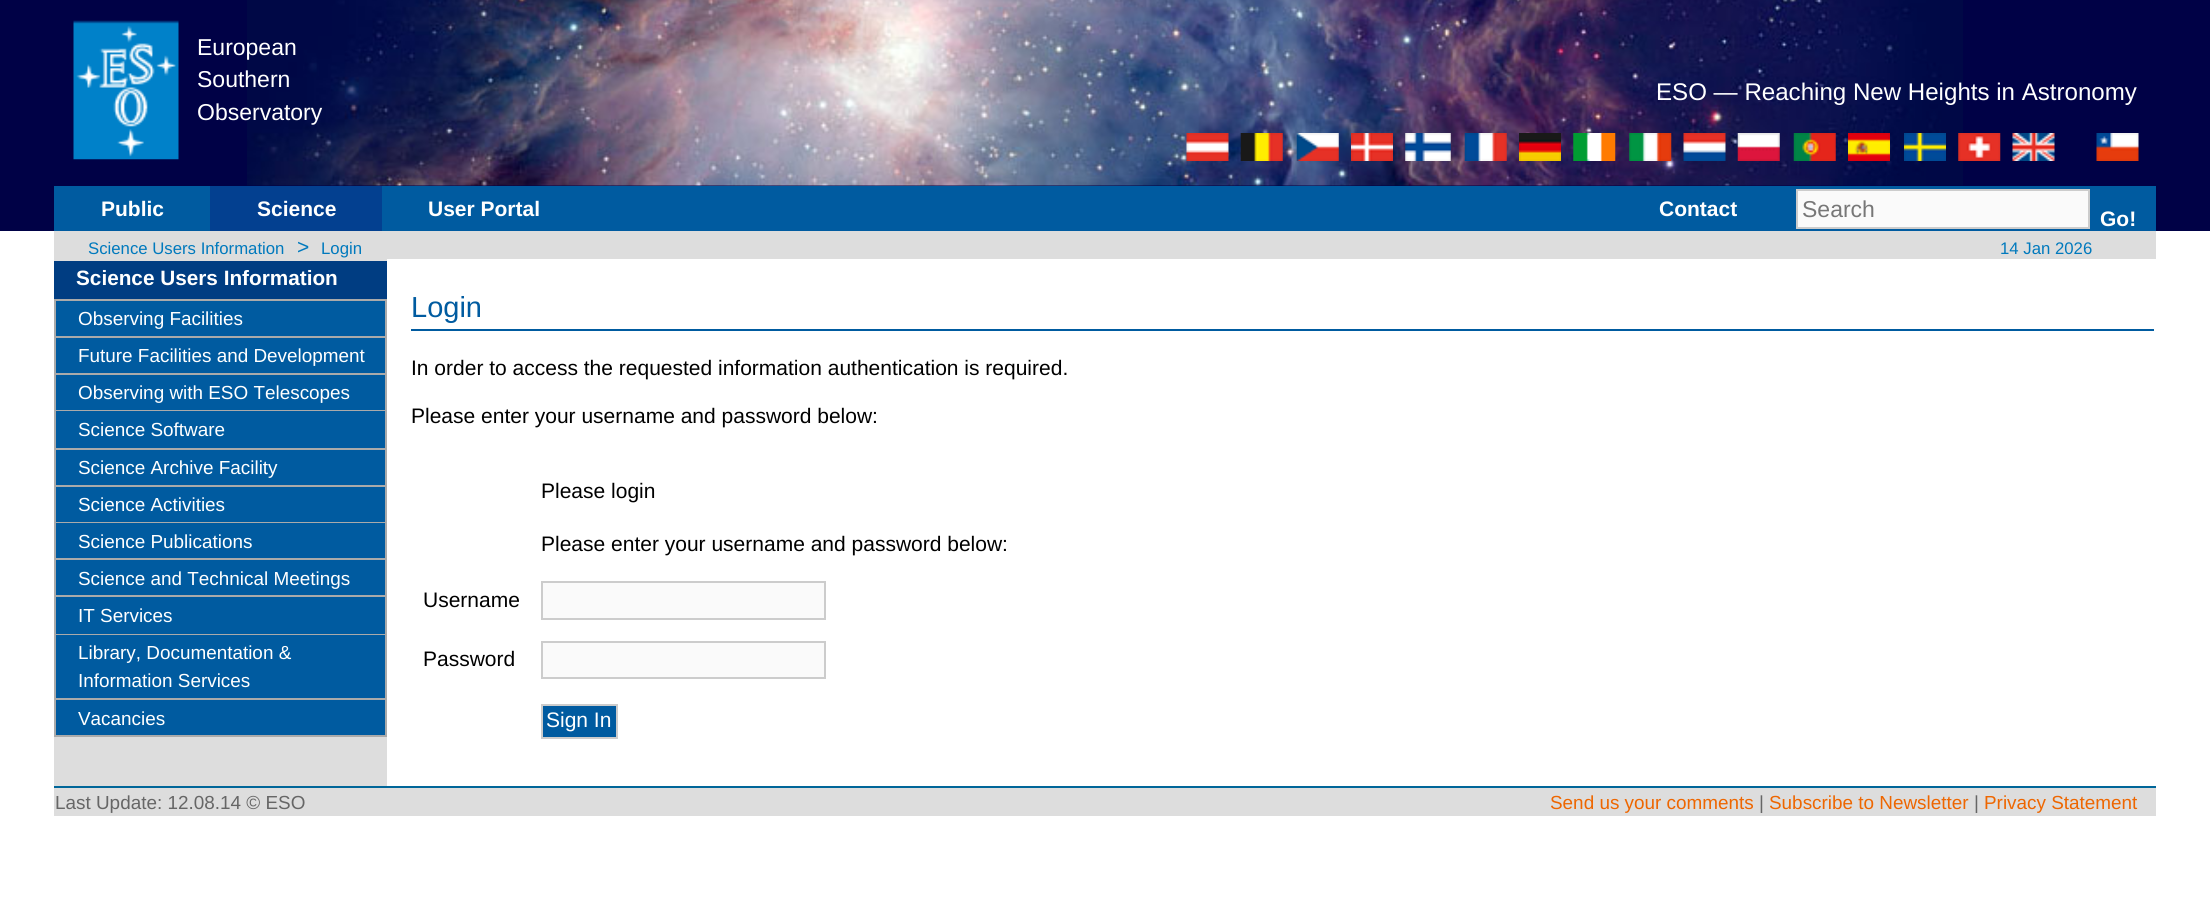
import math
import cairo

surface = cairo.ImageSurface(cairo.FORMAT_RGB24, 2210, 899)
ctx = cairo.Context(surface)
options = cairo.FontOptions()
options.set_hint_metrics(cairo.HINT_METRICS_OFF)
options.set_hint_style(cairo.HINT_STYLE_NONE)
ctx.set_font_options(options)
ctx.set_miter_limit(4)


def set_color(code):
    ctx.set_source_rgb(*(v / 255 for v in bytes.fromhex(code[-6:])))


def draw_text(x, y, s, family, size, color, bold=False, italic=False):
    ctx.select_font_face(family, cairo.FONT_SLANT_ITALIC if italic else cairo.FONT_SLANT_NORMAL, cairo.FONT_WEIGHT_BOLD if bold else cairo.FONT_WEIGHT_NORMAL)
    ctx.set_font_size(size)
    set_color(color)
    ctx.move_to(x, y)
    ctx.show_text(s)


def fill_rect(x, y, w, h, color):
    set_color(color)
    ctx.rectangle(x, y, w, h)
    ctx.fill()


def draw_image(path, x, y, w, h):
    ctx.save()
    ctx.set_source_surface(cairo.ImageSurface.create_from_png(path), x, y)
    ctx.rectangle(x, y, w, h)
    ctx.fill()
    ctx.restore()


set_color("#ffffff")
ctx.paint()
fill_rect(0, 0, 2210, 231, "#000146")
fill_rect(54, 259, 333, 527, "#dddddd")
draw_image("assets/img1.png", 247, 0, 1716, 186)
draw_image("assets/img2.png", 73, 20, 106, 140)
draw_text(197, 55, "European", "Liberation Sans", 23, "#ffffff")
draw_text(197, 87, "Southern", "Liberation Sans", 23, "#ffffff")
draw_text(197, 120, "Observatory", "Liberation Sans", 23, "#ffffff")
draw_text(1656, 100, "ESO — Reaching New Heights in Astronomy", "Liberation Sans", 24.1, "#ffffff")
draw_image("assets/img3.png", 1186, 133, 43, 28)
draw_image("assets/img4.png", 1240, 133, 43, 28)
draw_image("assets/img5.png", 1296, 133, 43, 28)
draw_image("assets/img6.png", 1351, 133, 42, 28)
draw_image("assets/img7.png", 1405, 133, 46, 28)
draw_image("assets/img8.png", 1464, 133, 43, 28)
draw_image("assets/img9.png", 1519, 133, 42, 28)
draw_image("assets/img10.png", 1573, 133, 43, 28)
draw_image("assets/img11.png", 1629, 133, 43, 28)
draw_image("assets/img12.png", 1683, 133, 43, 28)
draw_image("assets/img13.png", 1737, 133, 43, 28)
draw_image("assets/img14.png", 1793, 133, 43, 28)
draw_image("assets/img15.png", 1848, 133, 42, 28)
draw_image("assets/img16.png", 1904, 133, 42, 28)
draw_image("assets/img17.png", 1958, 133, 43, 28)
draw_image("assets/img18.png", 2012, 133, 43, 28)
draw_image("assets/img19.png", 2096, 133, 43, 28)
fill_rect(54, 186, 2102, 45, "#005ba0")
draw_text(101, 216, "Public", "Liberation Sans", 21, "#ffffff", bold=True)
fill_rect(210, 186, 172, 45, "#034090")
draw_text(257, 216, "Science", "Liberation Sans", 21, "#ffffff", bold=True)
draw_text(428, 216, "User Portal", "Liberation Sans", 21, "#ffffff", bold=True)
draw_text(1659, 216, "Contact", "Liberation Sans", 21, "#ffffff", bold=True)
set_color("#fafafa")
ctx.rectangle(1797, 190, 292, 38)
ctx.fill_preserve()
set_color("#cccccc")
ctx.stroke()
draw_text(1802, 217, "Search", "Liberation Sans", 23, "#777777")
draw_text(2100, 226, "Go!", "Liberation Sans", 21, "#ffffff", bold=True)
fill_rect(54, 231, 2102, 28, "#dddddd")
draw_text(88, 254, "Science Users Information", "Liberation Sans", 16.75, "#0079bd")
draw_text(297, 254, ">", "Liberation Sans", 21, "#0079bd")
draw_text(321, 254, "Login", "Liberation Sans", 16.75, "#0079bd")
draw_text(2000, 254, "14 Jan 2026", "Liberation Sans", 16.75, "#0079bd")
fill_rect(54, 261, 333, 38, "#003d82")
fill_rect(54, 299, 333, 2, "#aaaaaa")
draw_text(76, 285, "Science Users Information", "Liberation Sans", 20.75, "#ffffff", bold=True)
fill_rect(56, 301, 329, 35, "#005ba0")
fill_rect(385, 301, 2, 436, "#aaaaaa")
fill_rect(54, 336, 333, 2, "#aaaaaa")
fill_rect(54, 301, 2, 37, "#aaaaaa")
draw_text(78, 325, "Observing Facilities", "Liberation Sans", 18.9, "#ffffff")
fill_rect(56, 338, 329, 35, "#005ba0")
fill_rect(54, 373, 333, 2, "#aaaaaa")
fill_rect(54, 338, 2, 37, "#aaaaaa")
draw_text(78, 362, "Future Facilities and Development", "Liberation Sans", 18.9, "#ffffff")
fill_rect(56, 375, 329, 35, "#005ba0")
fill_rect(54, 410, 333, 1, "#aaaaaa")
fill_rect(54, 375, 2, 36, "#aaaaaa")
draw_text(78, 399, "Observing with ESO Telescopes", "Liberation Sans", 18.9, "#ffffff")
fill_rect(56, 411, 329, 37, "#005ba0")
fill_rect(54, 448, 333, 2, "#aaaaaa")
fill_rect(54, 411, 2, 39, "#aaaaaa")
draw_text(78, 436, "Science Software", "Liberation Sans", 18.9, "#ffffff")
fill_rect(56, 450, 329, 35, "#005ba0")
fill_rect(54, 485, 333, 2, "#aaaaaa")
fill_rect(54, 450, 2, 37, "#aaaaaa")
draw_text(78, 474, "Science Archive Facility", "Liberation Sans", 18.9, "#ffffff")
fill_rect(56, 487, 329, 35, "#005ba0")
fill_rect(54, 522, 333, 1, "#aaaaaa")
fill_rect(54, 487, 2, 36, "#aaaaaa")
draw_text(78, 511, "Science Activities", "Liberation Sans", 18.9, "#ffffff")
fill_rect(56, 523, 329, 35, "#005ba0")
fill_rect(54, 558, 333, 2, "#aaaaaa")
fill_rect(54, 523, 2, 37, "#aaaaaa")
draw_text(78, 548, "Science Publications", "Liberation Sans", 18.9, "#ffffff")
fill_rect(56, 560, 329, 35, "#005ba0")
fill_rect(54, 595, 333, 2, "#aaaaaa")
fill_rect(54, 560, 2, 37, "#aaaaaa")
draw_text(78, 585, "Science and Technical Meetings", "Liberation Sans", 18.9, "#ffffff")
fill_rect(56, 597, 329, 37, "#005ba0")
fill_rect(54, 634, 333, 1, "#aaaaaa")
fill_rect(54, 597, 2, 38, "#aaaaaa")
draw_text(78, 622, "IT Services", "Liberation Sans", 18.9, "#ffffff")
fill_rect(56, 635, 329, 63, "#005ba0")
fill_rect(54, 698, 333, 2, "#aaaaaa")
fill_rect(54, 635, 2, 65, "#aaaaaa")
draw_text(78, 659, "Library, Documentation &", "Liberation Sans", 18.9, "#ffffff")
draw_text(78, 687, "Information Services", "Liberation Sans", 18.9, "#ffffff")
fill_rect(56, 700, 329, 35, "#005ba0")
fill_rect(54, 735, 333, 2, "#aaaaaa")
fill_rect(54, 700, 2, 37, "#aaaaaa")
draw_text(78, 725, "Vacancies", "Liberation Sans", 18.9, "#ffffff")
fill_rect(411, 329, 1743, 2, "#005ba0")
draw_text(411, 317, "Login", "Liberation Sans", 29, "#005ba0")
draw_text(411, 375, "In order to access the requested information authentication is required.", "Liberation Sans", 21, "#000000")
draw_text(411, 423, "Please enter your username and password below:", "Liberation Sans", 21, "#000000")
draw_text(541, 498, "Please login", "Liberation Sans", 21, "#000000")
draw_text(541, 551, "Please enter your username and password below:", "Liberation Sans", 21, "#000000")
draw_text(423, 607, "Username", "Liberation Sans", 21, "#000000")
set_color("#fafafa")
ctx.rectangle(542, 582, 283, 37)
ctx.fill_preserve()
set_color("#cccccc")
ctx.stroke()
draw_text(423, 666, "Password", "Liberation Sans", 21, "#000000")
set_color("#fafafa")
ctx.rectangle(542, 642, 283, 36)
ctx.fill_preserve()
set_color("#cccccc")
ctx.stroke()
set_color("#005ba0")
ctx.rectangle(542, 705, 75, 33)
ctx.fill_preserve()
set_color("#cccccc")
ctx.stroke()
draw_text(546, 727, "Sign In", "Liberation Sans", 21, "#ffffff")
fill_rect(54, 786, 2102, 2, "#006699")
fill_rect(54, 788, 2102, 28, "#dddddd")
draw_text(55, 809, "Last Update: 12.08.14 © ESO", "Liberation Sans", 18.9, "#666666")
draw_text(1550, 809, "Send us your comments", "Liberation Sans", 18.9, "#ee6600")
draw_text(1759, 809, "|", "Liberation Sans", 18.9, "#666666")
draw_text(1769, 809, "Subscribe to Newsletter", "Liberation Sans", 18.9, "#ee6600")
draw_text(1974, 809, "|", "Liberation Sans", 18.9, "#666666")
draw_text(1984, 809, "Privacy Statement", "Liberation Sans", 18.9, "#ee6600")
surface.write_to_png("output.png")
